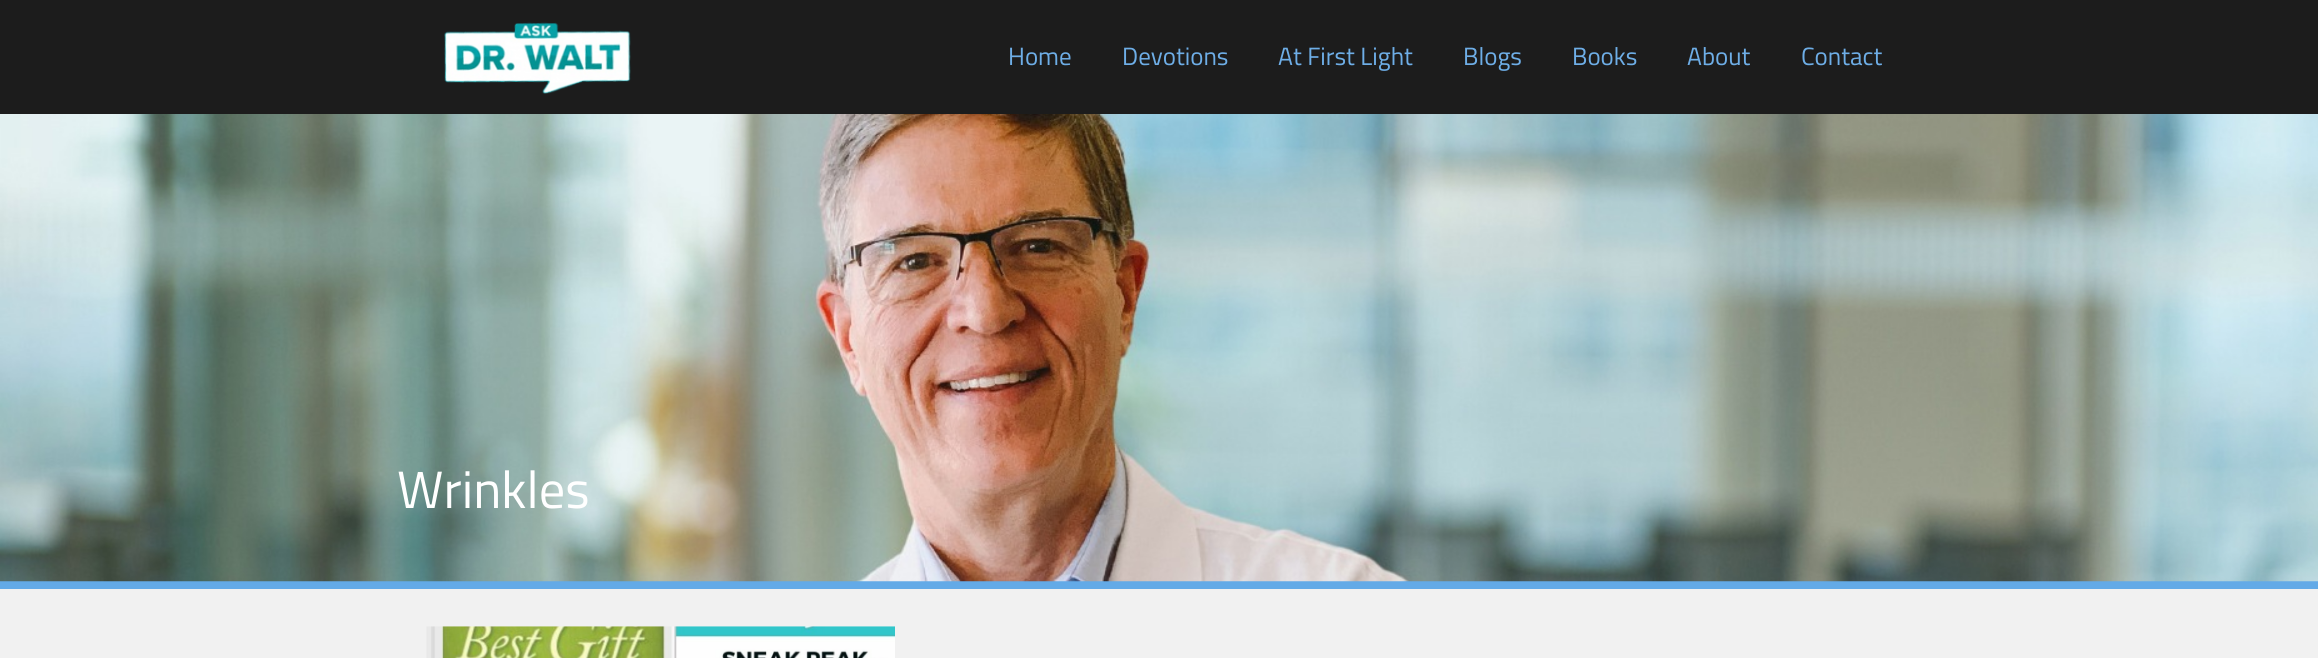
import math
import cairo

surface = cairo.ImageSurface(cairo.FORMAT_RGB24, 2318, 658)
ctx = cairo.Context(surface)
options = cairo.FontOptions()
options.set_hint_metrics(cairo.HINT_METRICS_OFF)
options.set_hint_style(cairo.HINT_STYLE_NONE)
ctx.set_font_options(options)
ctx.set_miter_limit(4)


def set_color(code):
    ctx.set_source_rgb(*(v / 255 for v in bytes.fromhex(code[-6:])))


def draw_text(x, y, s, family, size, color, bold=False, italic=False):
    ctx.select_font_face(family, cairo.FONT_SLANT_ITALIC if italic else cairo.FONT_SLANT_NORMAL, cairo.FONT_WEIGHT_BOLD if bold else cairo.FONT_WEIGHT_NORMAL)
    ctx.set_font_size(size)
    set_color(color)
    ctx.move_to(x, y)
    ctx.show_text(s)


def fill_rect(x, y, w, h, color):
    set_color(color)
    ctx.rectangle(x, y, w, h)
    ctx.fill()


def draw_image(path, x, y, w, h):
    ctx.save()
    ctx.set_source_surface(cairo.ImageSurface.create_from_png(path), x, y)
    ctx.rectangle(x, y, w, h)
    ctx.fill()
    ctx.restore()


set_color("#f1f1f1")
ctx.paint()
fill_rect(0, 581, 2318, 8, "#63aae7")
draw_image("assets/img1.png", 0, 114, 2318, 468)
fill_rect(0, 0, 2318, 114, "#1c1c1c")
draw_image("assets/img2.png", 444, 22, 187, 72)
draw_text(1008, 65, "Home", "Titillium Web", 25, "#6eaee7")
draw_text(1122, 65, "Devotions", "Titillium Web", 25, "#6eaee7")
draw_text(1278, 65, "At First Light", "Titillium Web", 25, "#6eaee7")
draw_text(1463, 65, "Blogs", "Titillium Web", 25, "#6eaee7")
draw_text(1572, 65, "Books", "Titillium Web", 25, "#6eaee7")
draw_text(1687, 65, "About", "Titillium Web", 25, "#6eaee7")
draw_text(1801, 65, "Contact", "Titillium Web", 25, "#6eaee7")
draw_text(397, 508, "Wrinkles", "Titillium Web", 52.5, "#ffffff")
draw_image("assets/img3.png", 426, 626, 469, 32)
surface.write_to_png("output.png")
